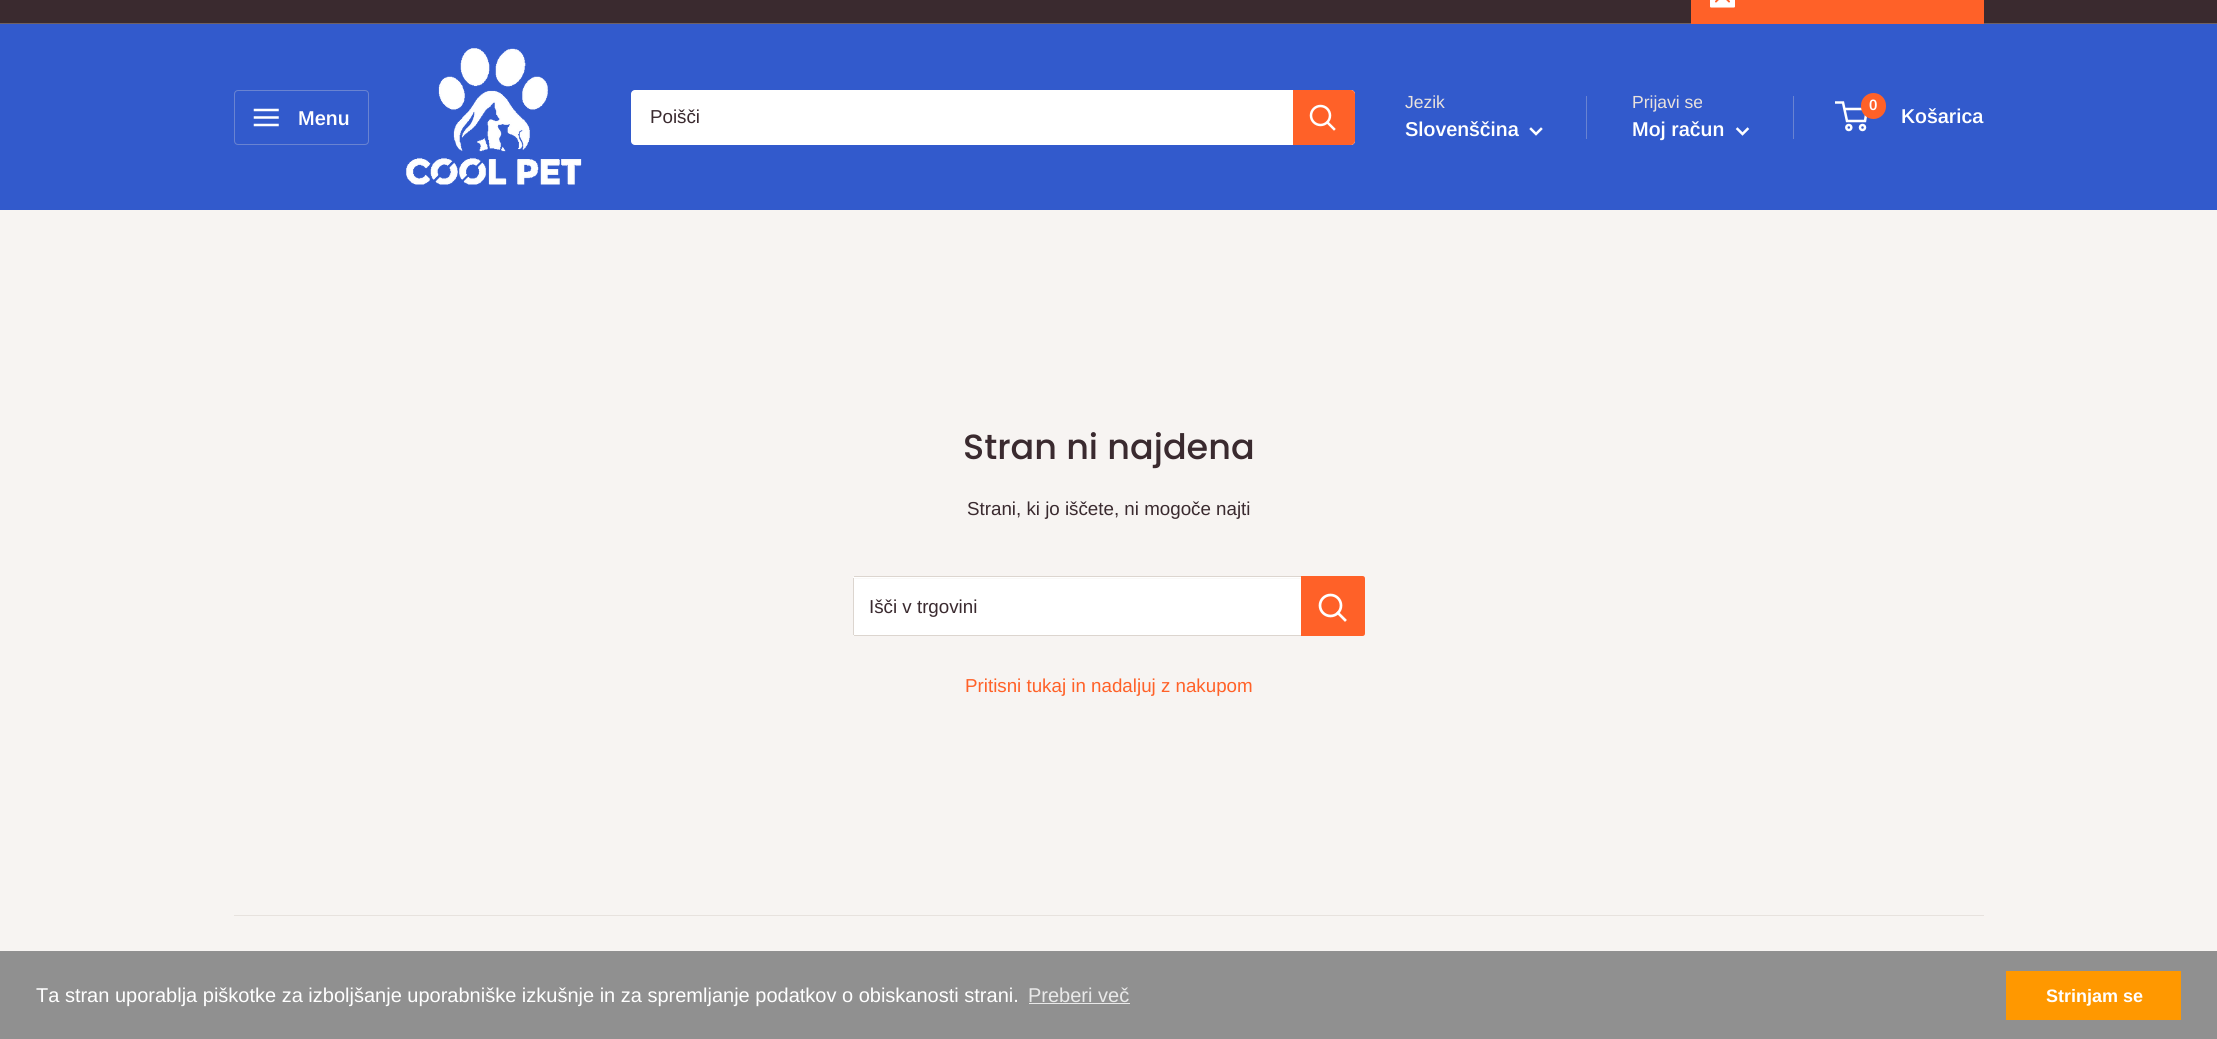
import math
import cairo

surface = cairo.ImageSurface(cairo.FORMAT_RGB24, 2217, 1039)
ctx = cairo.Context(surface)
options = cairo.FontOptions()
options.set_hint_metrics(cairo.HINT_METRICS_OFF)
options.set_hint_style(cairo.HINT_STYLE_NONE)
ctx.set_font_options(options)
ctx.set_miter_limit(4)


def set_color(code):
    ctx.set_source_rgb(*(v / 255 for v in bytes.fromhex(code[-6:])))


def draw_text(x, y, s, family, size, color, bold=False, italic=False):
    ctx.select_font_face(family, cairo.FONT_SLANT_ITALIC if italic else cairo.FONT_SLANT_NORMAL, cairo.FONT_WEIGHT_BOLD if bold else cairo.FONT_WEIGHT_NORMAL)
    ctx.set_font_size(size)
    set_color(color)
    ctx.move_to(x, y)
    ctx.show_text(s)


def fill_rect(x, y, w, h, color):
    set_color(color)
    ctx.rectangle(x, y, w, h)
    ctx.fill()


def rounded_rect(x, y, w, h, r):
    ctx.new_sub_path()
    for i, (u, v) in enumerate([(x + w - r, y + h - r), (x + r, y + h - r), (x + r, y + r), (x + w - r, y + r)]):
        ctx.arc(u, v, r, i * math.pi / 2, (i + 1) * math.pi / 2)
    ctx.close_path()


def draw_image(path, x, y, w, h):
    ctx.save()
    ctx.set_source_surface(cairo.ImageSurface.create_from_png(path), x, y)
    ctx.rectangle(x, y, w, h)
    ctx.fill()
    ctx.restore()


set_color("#f7f4f2")
ctx.paint()
fill_rect(0, 0, 2217, 23, "#3a2a2f")
fill_rect(0, 23, 2217, 1, "#6f6163")
set_color("#ff6128")
ctx.new_path()
ctx.move_to(1691, -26)
ctx.line_to(1691, 24)
ctx.line_to(1984, 24)
ctx.line_to(1984, -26)
ctx.line_to(1984, 22)
ctx.line_to(1691, 22)
ctx.close_path()
ctx.fill()
fill_rect(1691, 0, 293, 22, "#ff6128")
draw_image("assets/img1.png", 1710, 0, 25, 8)
fill_rect(0, 24, 2217, 186, "#325acc")
rounded_rect(234.5, 90.5, 134, 54, 3.5)
set_color("#6983d1")
ctx.set_line_width(1)
ctx.stroke()
draw_image("assets/img2.png", 253, 108, 26, 19)
draw_text(298, 125, "Menu", "Arimo SemiBold", 20, "#ffffff")
draw_image("assets/img3.png", 406, 48, 176, 137)
rounded_rect(631, 90, 724, 55, 4)
ctx.fill()
draw_text(650, 123, "Poišči", "Arimo", 18.75, "#3a2a2f")
set_color("#ff6128")
ctx.new_path()
ctx.move_to(1293, 90)
ctx.line_to(1351, 90)
ctx.curve_to(1353, 90, 1355, 92, 1355, 94)
ctx.line_to(1355, 141)
ctx.curve_to(1355, 143, 1353, 145, 1351, 145)
ctx.line_to(1293, 145)
ctx.close_path()
ctx.fill()
ctx.new_path()
ctx.move_to(1334, 129)
ctx.line_to(1327.5, 122.5)
set_color("#ffffff")
ctx.set_line_width(2.5)
ctx.set_line_cap(cairo.LINE_CAP_SQUARE)
ctx.stroke()
ctx.arc(1320.5, 115.5, 9.5, 0, 2 * math.pi)
ctx.set_line_cap(cairo.LINE_CAP_BUTT)
ctx.stroke()
draw_text(1405, 108, "Jezik", "Arimo", 17.5, "#e9e2dd")
draw_text(1405, 136, "Slovenščina", "Arimo SemiBold", 20, "#ffffff")
ctx.new_path()
ctx.move_to(1541, 129)
ctx.line_to(1536, 134)
ctx.line_to(1531, 129)
ctx.set_line_cap(cairo.LINE_CAP_SQUARE)
ctx.stroke()
fill_rect(1586, 96, 1, 43, "#6983d1")
draw_text(1632, 108, "Prijavi se", "Arimo", 17.5, "#e9e2dd")
fill_rect(1793, 96, 1, 43, "#6983d1")
draw_text(1632, 136, "Moj račun", "Arimo SemiBold", 20, "#ffffff")
ctx.new_path()
ctx.move_to(1747.5, 129)
ctx.line_to(1742.5, 134)
ctx.line_to(1737.5, 129)
ctx.stroke()
ctx.arc(1848.8, 127.5, 2.5, 0, 2 * math.pi)
ctx.set_line_cap(cairo.LINE_CAP_BUTT)
ctx.stroke()
ctx.arc(1862.5, 127.5, 2.5, 0, 2 * math.pi)
ctx.stroke()
ctx.new_path()
ctx.move_to(1844, 109)
ctx.line_to(1867, 109)
ctx.line_to(1865, 121)
ctx.line_to(1847, 121)
ctx.line_to(1843, 102.5)
ctx.line_to(1835, 102.5)
ctx.stroke()
set_color("#ff6128")
rounded_rect(1861, 93, 25, 26, 12.5)
ctx.fill()
draw_text(1869, 110, "0", "Arimo SemiBold", 15, "#ffffff")
draw_text(1901, 123, "Košarica", "Arimo SemiBold", 20, "#ffffff")
draw_text(963, 459, "Stran ni najdena", "Poppins Medium", 35, "#3a2a2f")
draw_text(967, 515, "Strani, ki jo iščete, ni mogoče najti", "Arimo", 18.75, "#3a2a2f")
set_color("#ffffff")
ctx.new_path()
ctx.move_to(855.5, 576)
ctx.line_to(1301, 576)
ctx.line_to(1301, 636)
ctx.line_to(855.5, 636)
ctx.curve_to(854, 636, 853, 635, 853, 633.5)
ctx.line_to(853, 578.5)
ctx.curve_to(853, 577, 854, 576, 855.5, 576)
ctx.close_path()
ctx.fill()
set_color("#f9f8f7")
ctx.new_path()
ctx.move_to(855, 579)
ctx.line_to(1301, 579)
ctx.line_to(1301, 578)
ctx.line_to(855, 578)
ctx.line_to(854, 579)
ctx.line_to(854, 580)
ctx.curve_to(854, 579, 854, 579, 855, 579)
ctx.close_path()
ctx.fill()
fill_rect(854, 576, 447, 1, "#dcd5cf")
fill_rect(854, 635, 447, 1, "#dcd5cf")
fill_rect(853, 578, 1, 57, "#dcd5cf")
draw_text(869, 613, "Išči v trgovini", "Arimo", 18.75, "#3a2a2f")
set_color("#ff6128")
ctx.new_path()
ctx.move_to(1301, 576)
ctx.line_to(1362.5, 576)
ctx.curve_to(1364, 576, 1365, 577, 1365, 578.5)
ctx.line_to(1365, 633.5)
ctx.curve_to(1365, 635, 1364, 636, 1362.5, 636)
ctx.line_to(1301, 636)
ctx.close_path()
ctx.fill()
ctx.new_path()
ctx.move_to(1345, 620)
ctx.line_to(1338, 613)
set_color("#ffffff")
ctx.set_line_width(2.7)
ctx.set_line_cap(cairo.LINE_CAP_SQUARE)
ctx.stroke()
ctx.arc(1330.5, 605.5, 10.5, 0, 2 * math.pi)
ctx.set_line_cap(cairo.LINE_CAP_BUTT)
ctx.stroke()
draw_text(965, 692, "Pritisni tukaj in nadaljuj z nakupom", "Arimo", 18.75, "#ff6128")
fill_rect(234, 915, 1750, 1, "#e7e2de")
fill_rect(0, 951, 2217, 88, "#909090")
draw_text(36, 1002, "Ta stran uporablja piškotke za izboljšanje uporabniške izkušnje in za spremljanje podatkov o obiskanosti strani.", "Liberation Sans", 20, "#ffffff")
draw_text(1028, 1002, "Preberi več", "Liberation Sans", 20, "#e9e9e9")
fill_rect(1029, 1003, 101, 1, "#e9e9e9")
fill_rect(2006, 971, 175, 49, "#ff9800")
draw_text(2046, 1002, "Strinjam se", "Liberation Sans", 18, "#ffffff", bold=True)
surface.write_to_png("output.png")
